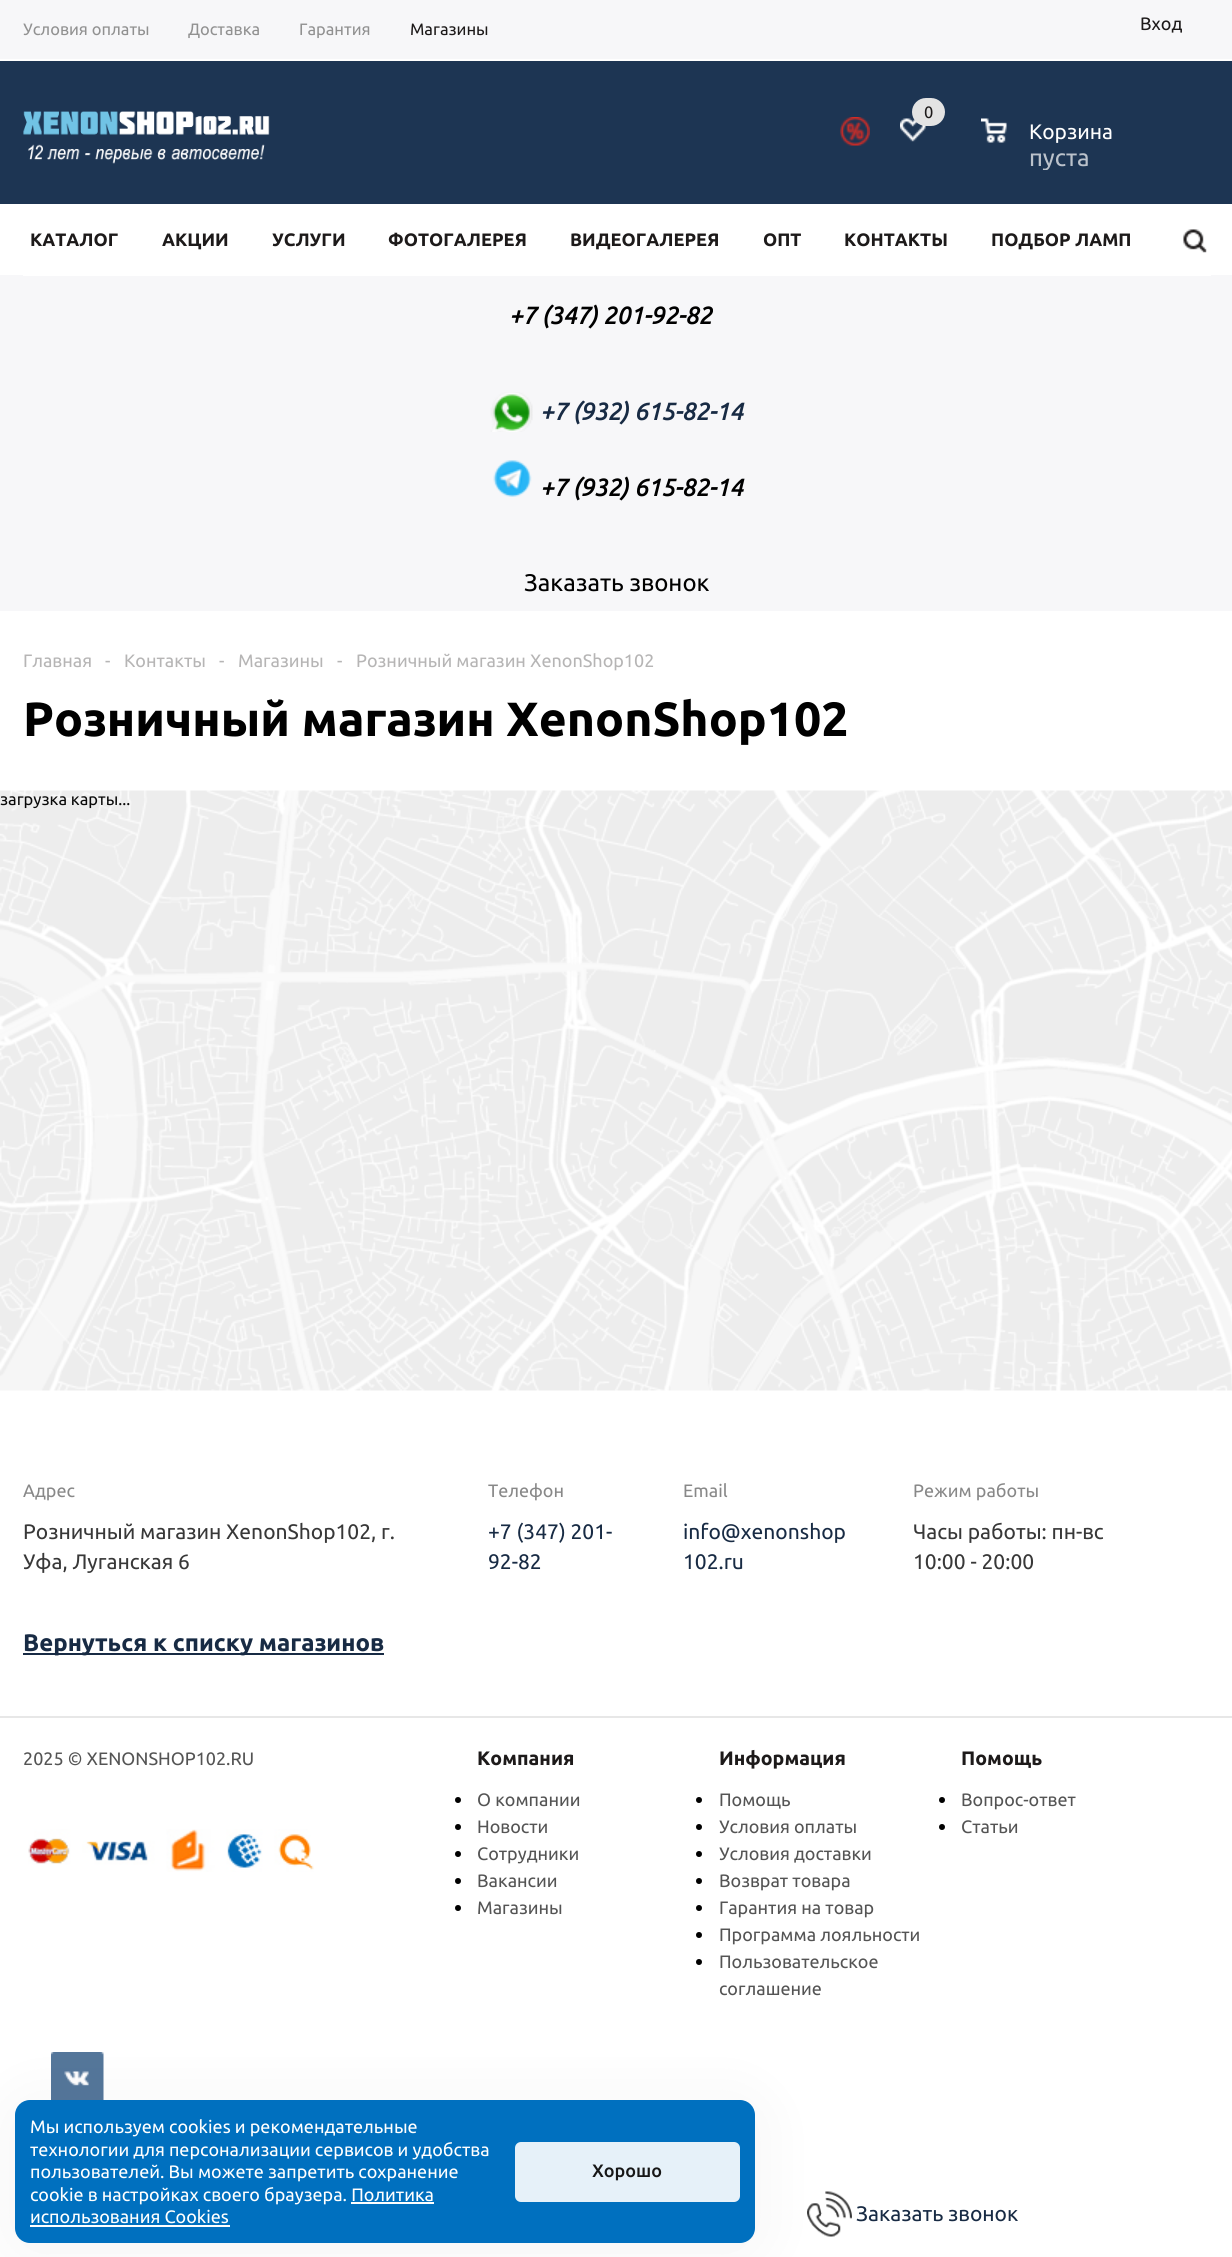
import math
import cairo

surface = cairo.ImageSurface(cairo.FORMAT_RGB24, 1232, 2257)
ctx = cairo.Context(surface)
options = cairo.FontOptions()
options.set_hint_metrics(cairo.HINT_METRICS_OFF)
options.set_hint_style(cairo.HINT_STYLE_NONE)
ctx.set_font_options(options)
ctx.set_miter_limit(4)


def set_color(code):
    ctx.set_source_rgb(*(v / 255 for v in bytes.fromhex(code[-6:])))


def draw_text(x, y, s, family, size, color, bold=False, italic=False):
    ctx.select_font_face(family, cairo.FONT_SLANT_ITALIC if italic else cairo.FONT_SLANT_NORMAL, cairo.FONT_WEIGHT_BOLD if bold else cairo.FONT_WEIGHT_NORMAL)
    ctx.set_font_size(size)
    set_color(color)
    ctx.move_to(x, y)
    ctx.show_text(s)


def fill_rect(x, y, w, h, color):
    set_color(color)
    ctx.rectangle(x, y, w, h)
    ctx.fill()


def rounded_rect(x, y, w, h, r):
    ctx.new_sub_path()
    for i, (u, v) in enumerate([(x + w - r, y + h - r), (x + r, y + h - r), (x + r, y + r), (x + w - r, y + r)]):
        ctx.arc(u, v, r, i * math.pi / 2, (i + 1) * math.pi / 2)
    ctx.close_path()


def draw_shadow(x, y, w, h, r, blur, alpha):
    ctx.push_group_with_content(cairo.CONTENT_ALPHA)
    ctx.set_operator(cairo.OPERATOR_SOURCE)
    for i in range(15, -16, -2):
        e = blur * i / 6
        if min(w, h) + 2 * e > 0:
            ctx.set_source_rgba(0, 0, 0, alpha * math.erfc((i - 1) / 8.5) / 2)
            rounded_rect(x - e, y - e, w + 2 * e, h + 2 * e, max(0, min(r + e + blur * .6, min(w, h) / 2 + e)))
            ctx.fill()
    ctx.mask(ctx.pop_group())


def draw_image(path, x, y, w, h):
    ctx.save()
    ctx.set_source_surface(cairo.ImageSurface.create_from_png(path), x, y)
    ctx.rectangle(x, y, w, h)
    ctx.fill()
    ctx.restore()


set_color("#ffffff")
ctx.paint()
fill_rect(0, 0, 1232, 59, "#f7f7f9")
draw_text(23, 35, "Условия оплаты", "Ubuntu", 16.5, "#919191")
draw_text(188, 35, "Доставка", "Ubuntu", 16.5, "#919191")
draw_text(299, 35, "Гарантия", "Ubuntu", 16.5, "#919191")
draw_text(410, 35, "Магазины", "Ubuntu", 16.5, "#1d1a1a")
draw_text(1140, 30, "Вход", "Ubuntu", 18, "#1d1a1a")
fill_rect(0, 61, 1232, 143, "#1d3553")
draw_image("assets/img1.png", 23, 111, 247, 53)
draw_image("assets/img2.png", 840, 117, 30, 29)
draw_image("assets/img3.png", 900, 118, 26, 24)
set_color("#e3e3e3")
rounded_rect(912, 98, 33, 28, 14)
ctx.fill()
draw_text(924, 118, "0", "Ubuntu", 16.5, "#1d1a1a")
draw_image("assets/img4.png", 981, 118, 26, 25)
draw_text(1029, 139, "Корзина", "Ubuntu", 21, "#ffffff")
ctx.save()
ctx.rectangle(1029, 146, 84, 24)
ctx.clip()
draw_text(1029, 166, "пуста", "Ubuntu", 24, "#bbc2cb")
ctx.restore()
fill_rect(0, 275, 1232, 336, "#f7f7f9")
fill_rect(23, 275, 1188, 1, "#ffffff")
draw_text(30, 246, "КАТАЛОГ", "Ubuntu", 18, "#1d1a1a", bold=True)
draw_text(162, 246, "АКЦИИ", "Ubuntu", 18, "#1d1a1a", bold=True)
draw_text(272, 246, "УСЛУГИ", "Ubuntu", 18, "#1d1a1a", bold=True)
draw_text(388, 246, "ФОТОГАЛЕРЕЯ", "Ubuntu", 18, "#1d1a1a", bold=True)
draw_text(570, 246, "ВИДЕОГАЛЕРЕЯ", "Ubuntu", 18, "#1d1a1a", bold=True)
draw_text(763, 246, "ОПТ", "Ubuntu", 18, "#1d1a1a", bold=True)
draw_text(844, 246, "КОНТАКТЫ", "Ubuntu", 18, "#1d1a1a", bold=True)
draw_text(991, 246, "ПОДБОР ЛАМП", "Ubuntu", 18, "#1d1a1a", bold=True)
draw_image("assets/img5.png", 1183, 229, 24, 24)
draw_text(509, 324, "+7 (347) 201-92-82", "Ubuntu", 24, "#000000", bold=True, italic=True)
draw_image("assets/img6.png", 490, 392, 43, 40)
draw_text(540, 420, "+7 (932) 615-82-14", "Ubuntu", 24, "#182b44", bold=True, italic=True)
draw_image("assets/img7.png", 493, 460, 39, 37)
draw_text(540, 496, "+7 (932) 615-82-14", "Ubuntu", 24, "#000000", bold=True, italic=True)
draw_text(524, 591, "Заказать звонок", "Ubuntu", 24, "#000000")
draw_text(23, 667, "Главная", "Ubuntu", 18, "#b6b5b5")
draw_text(105, 667, "-", "Ubuntu", 18, "#b6b5b5")
draw_text(124, 667, "Контакты", "Ubuntu", 18, "#b6b5b5")
draw_text(219, 667, "-", "Ubuntu", 18, "#b6b5b5")
draw_text(238, 667, "Магазины", "Ubuntu", 18, "#b6b5b5")
draw_text(337, 667, "-", "Ubuntu", 18, "#b6b5b5")
draw_text(356, 667, "Розничный магазин XenonShop102", "Ubuntu", 18, "#b6b5b5")
draw_text(23, 736, "Розничный магазин XenonShop102", "Ubuntu", 48, "#000000", bold=True)
draw_text(0, 805, "загрузка карты...", "Ubuntu", 16.5, "#0a0a0a")
draw_image("assets/img8.png", 0, 790, 1232, 601)
draw_text(23, 1497, "Адрес", "Ubuntu", 18, "#888888")
draw_text(23, 1539, "Розничный магазин XenonShop102, г.", "Ubuntu", 21, "#383838")
draw_text(23, 1569, "Уфа, Луганская 6", "Ubuntu", 21, "#383838")
draw_text(488, 1497, "Телефон", "Ubuntu", 18, "#888888")
draw_text(488, 1539, "+7 (347) 201-", "Ubuntu", 21, "#182b44")
draw_text(488, 1569, "92-82", "Ubuntu", 21, "#182b44")
draw_text(683, 1497, "Email", "Ubuntu", 18, "#888888")
draw_text(683, 1539, "info@xenonshop", "Ubuntu", 21, "#182b44")
draw_text(683, 1569, "102.ru", "Ubuntu", 21, "#182b44")
draw_text(913, 1497, "Режим работы", "Ubuntu", 18, "#888888")
draw_text(913, 1539, "Часы работы: пн-вс", "Ubuntu", 21, "#383838")
draw_text(913, 1569, "10:00 - 20:00", "Ubuntu", 21, "#383838")
fill_rect(23, 1653, 361, 2, "#182b44")
draw_text(23, 1651, "Вернуться к списку магазинов", "Ubuntu", 24, "#182b44", bold=True)
fill_rect(0, 1716, 1232, 2, "#e7e7e7")
draw_text(23, 1765, "2025 © XENONSHOP102.RU", "Ubuntu", 18, "#545454")
draw_image("assets/img9.png", 28, 1829, 286, 43)
draw_text(477, 1765, "Компания", "Ubuntu", 19.5, "#1d1a1a", bold=True)
draw_text(719, 1765, "Информация", "Ubuntu", 19.5, "#1d1a1a", bold=True)
draw_text(961, 1765, "Помощь", "Ubuntu", 19.5, "#1d1a1a", bold=True)
set_color("#000000")
ctx.new_path()
ctx.arc(458, 1800, 3, 0, 2 * math.pi)
ctx.fill()
draw_text(477, 1806, "О компании", "Ubuntu", 18, "#545454")
set_color("#000000")
ctx.new_path()
ctx.arc(458, 1827, 3, 0, 2 * math.pi)
ctx.fill()
draw_text(477, 1833, "Новости", "Ubuntu", 18, "#545454")
set_color("#000000")
ctx.new_path()
ctx.arc(458, 1854, 3, 0, 2 * math.pi)
ctx.fill()
draw_text(477, 1860, "Сотрудники", "Ubuntu", 18, "#545454")
set_color("#000000")
ctx.new_path()
ctx.arc(458, 1881, 3, 0, 2 * math.pi)
ctx.fill()
draw_text(477, 1887, "Вакансии", "Ubuntu", 18, "#545454")
set_color("#000000")
ctx.new_path()
ctx.arc(458, 1908, 3, 0, 2 * math.pi)
ctx.fill()
draw_text(477, 1914, "Магазины", "Ubuntu", 18, "#545454")
set_color("#000000")
ctx.new_path()
ctx.arc(699, 1800, 3, 0, 2 * math.pi)
ctx.fill()
draw_text(719, 1806, "Помощь", "Ubuntu", 18, "#545454")
set_color("#000000")
ctx.new_path()
ctx.arc(699, 1827, 3, 0, 2 * math.pi)
ctx.fill()
draw_text(719, 1833, "Условия оплаты", "Ubuntu", 18, "#545454")
set_color("#000000")
ctx.new_path()
ctx.arc(699, 1854, 3, 0, 2 * math.pi)
ctx.fill()
draw_text(719, 1860, "Условия доставки", "Ubuntu", 18, "#545454")
set_color("#000000")
ctx.new_path()
ctx.arc(699, 1881, 3, 0, 2 * math.pi)
ctx.fill()
draw_text(719, 1887, "Возврат товара", "Ubuntu", 18, "#545454")
set_color("#000000")
ctx.new_path()
ctx.arc(699, 1908, 3, 0, 2 * math.pi)
ctx.fill()
draw_text(719, 1914, "Гарантия на товар", "Ubuntu", 18, "#545454")
set_color("#000000")
ctx.new_path()
ctx.arc(699, 1935, 3, 0, 2 * math.pi)
ctx.fill()
draw_text(719, 1941, "Программа лояльности", "Ubuntu", 18, "#545454")
set_color("#000000")
ctx.new_path()
ctx.arc(699, 1962, 3, 0, 2 * math.pi)
ctx.fill()
draw_text(719, 1968, "Пользовательское", "Ubuntu", 18, "#545454")
draw_text(719, 1995, "соглашение", "Ubuntu", 18, "#545454")
set_color("#000000")
ctx.new_path()
ctx.arc(942, 1800, 3, 0, 2 * math.pi)
ctx.fill()
draw_text(961, 1806, "Вопрос-ответ", "Ubuntu", 18, "#545454")
set_color("#000000")
ctx.new_path()
ctx.arc(942, 1827, 3, 0, 2 * math.pi)
ctx.fill()
draw_text(961, 1833, "Статьи", "Ubuntu", 18, "#545454")
draw_image("assets/img10.png", 51, 2052, 53, 48)
draw_image("assets/img11.png", 807, 2191, 45, 46)
draw_text(856, 2221, "Заказать звонок", "Ubuntu", 21, "#182b44")
set_color("#000000")
draw_shadow(15, 2106, 740, 143, 15, 32.5, 0.05)
set_color("#0070bf")
rounded_rect(15, 2100, 740, 143, 15)
ctx.fill()
draw_text(30, 2133, "Мы используем cookies и рекомендательные", "Ubuntu", 18, "#ffffff")
draw_text(30, 2156, "технологии для персонализации сервисов и удобства", "Ubuntu", 18, "#ffffff")
draw_text(30, 2178, "пользователей. Вы можете запретить сохранение", "Ubuntu", 18, "#ffffff")
draw_text(30, 2201, "cookie в настройках своего браузера. Политика", "Ubuntu", 18, "#ffffff")
draw_text(30, 2223, "использования Cookies", "Ubuntu", 18, "#ffffff")
fill_rect(351, 2202, 83, 2, "#ffffff")
fill_rect(30, 2225, 200, 2, "#ffffff")
set_color("#e6f1f9")
rounded_rect(515, 2142, 225, 60, 6)
ctx.fill()
draw_text(592, 2177, "Хорошо", "Ubuntu Medium", 18, "#171717")
surface.write_to_png("output.png")
